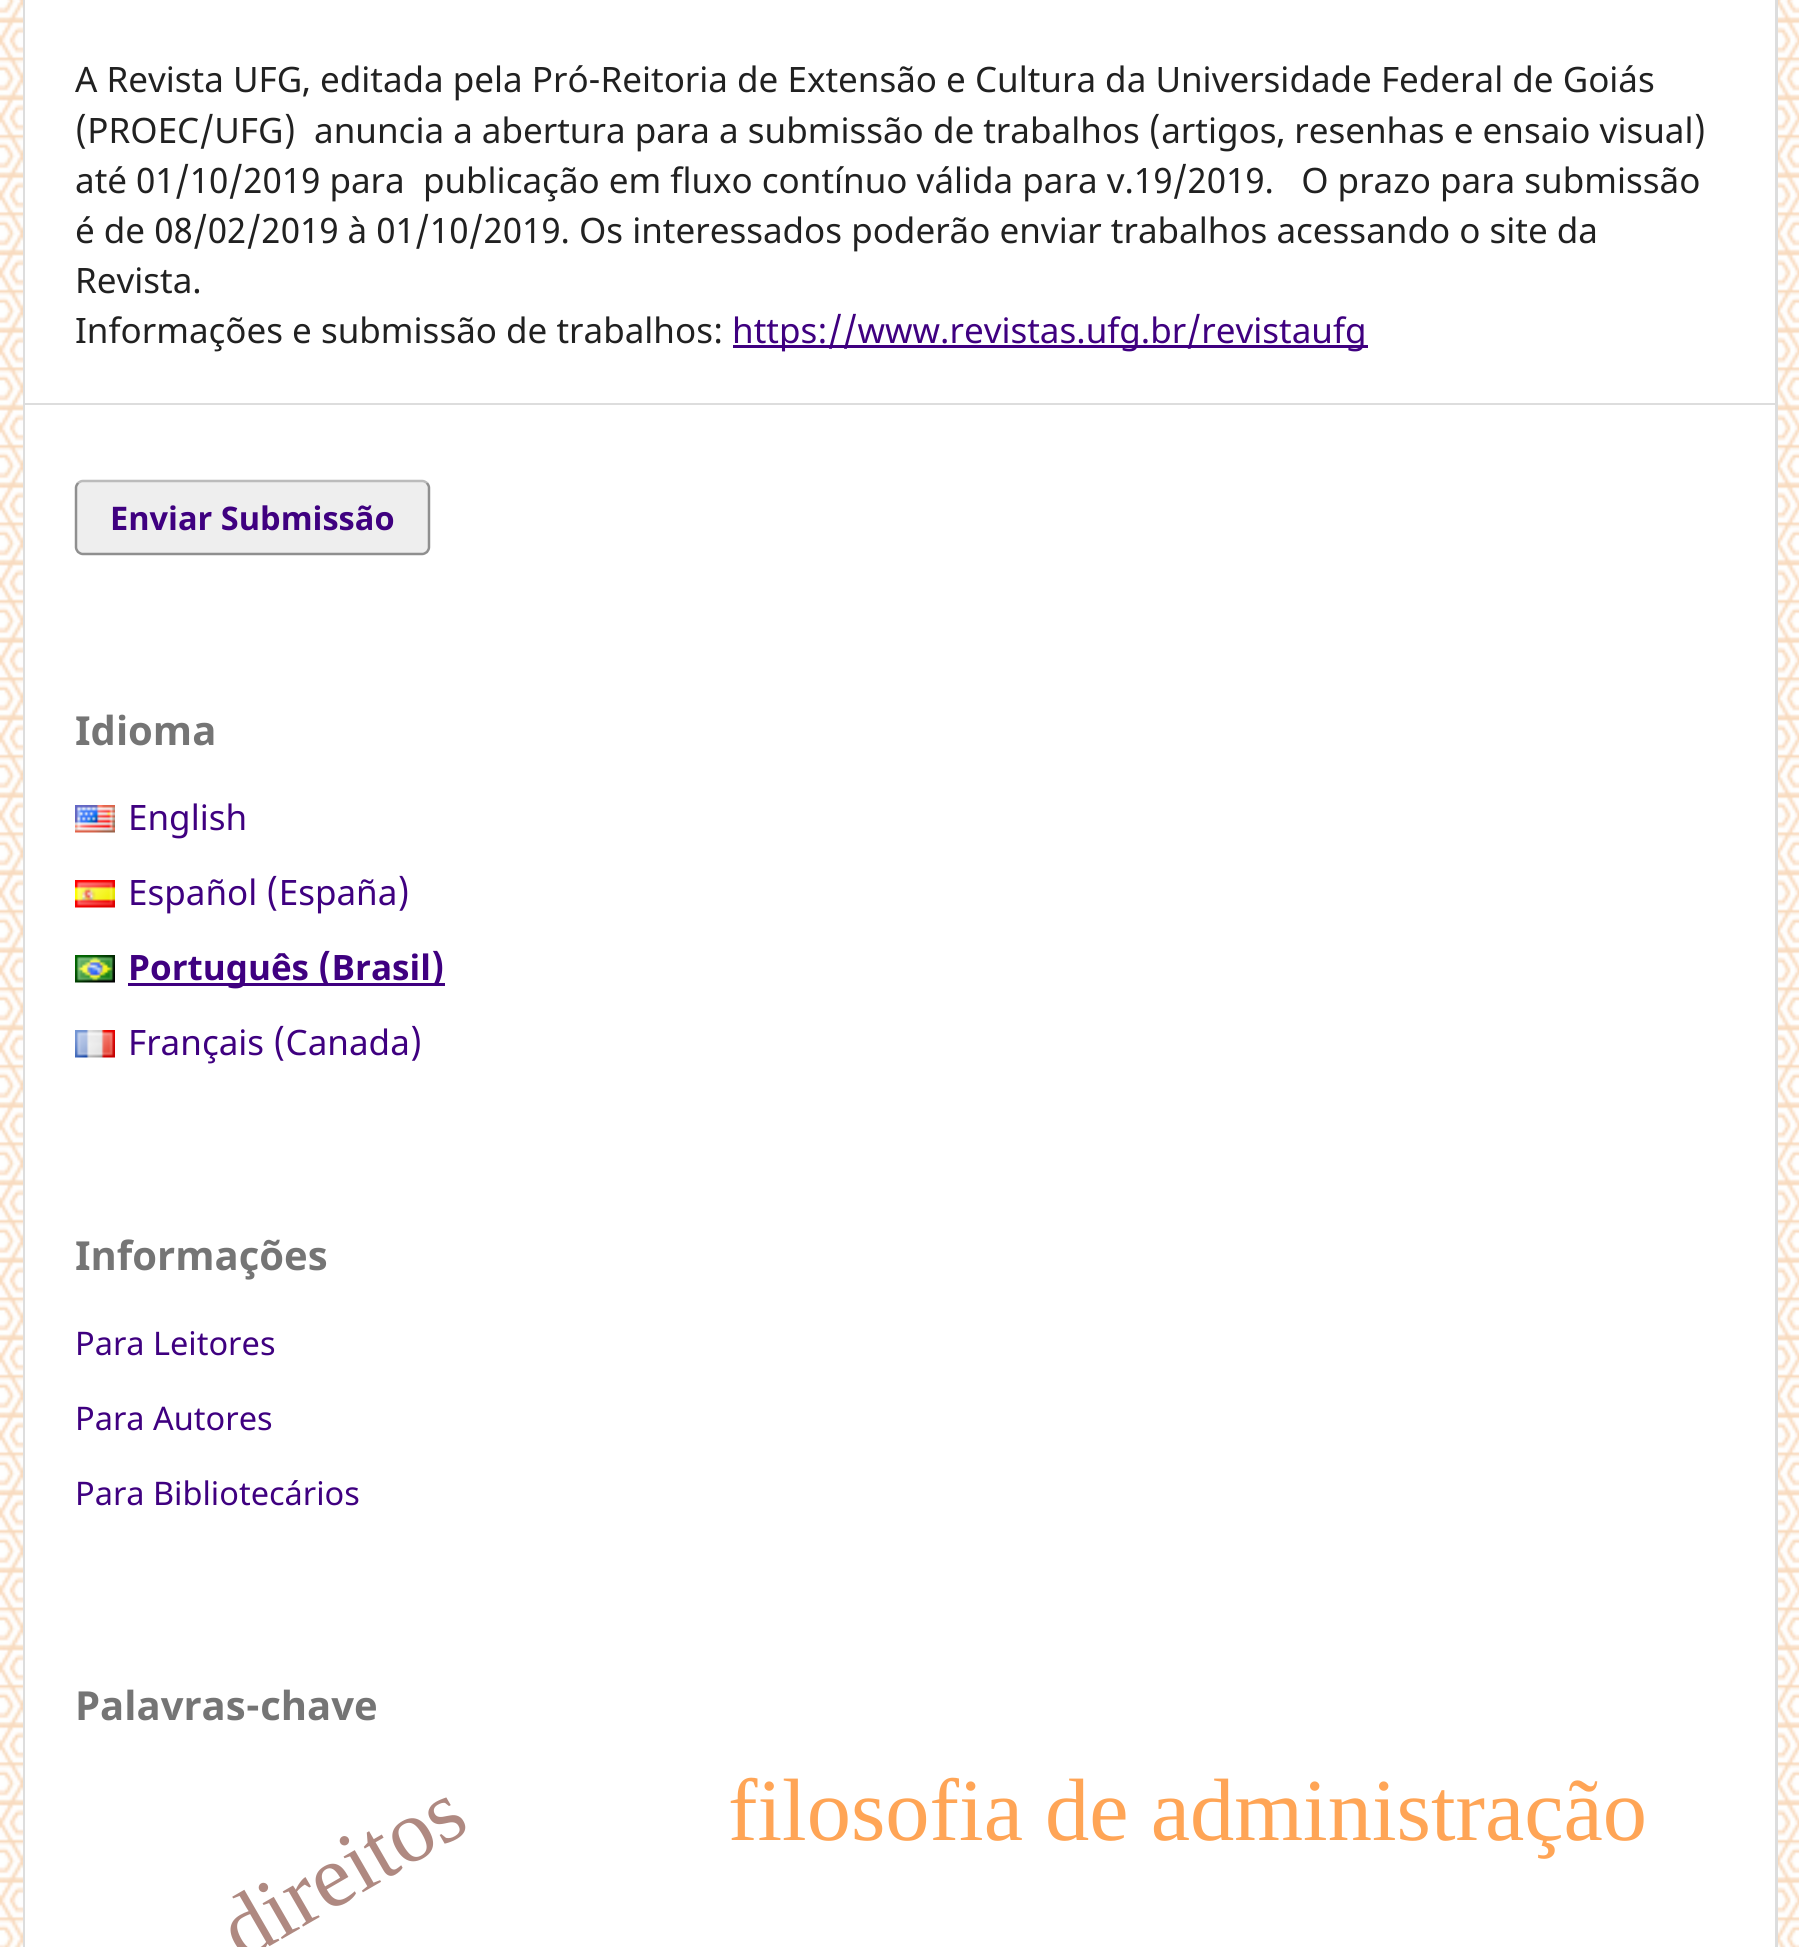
import math
import cairo

surface = cairo.ImageSurface(cairo.FORMAT_RGB24, 1799, 1947)
ctx = cairo.Context(surface)
options = cairo.FontOptions()
options.set_hint_metrics(cairo.HINT_METRICS_OFF)
options.set_hint_style(cairo.HINT_STYLE_NONE)
ctx.set_font_options(options)
ctx.set_miter_limit(4)


def set_color(code):
    ctx.set_source_rgb(*(v / 255 for v in bytes.fromhex(code[-6:])))


def draw_text(x, y, s, family, size, color, bold=False, italic=False):
    ctx.select_font_face(family, cairo.FONT_SLANT_ITALIC if italic else cairo.FONT_SLANT_NORMAL, cairo.FONT_WEIGHT_BOLD if bold else cairo.FONT_WEIGHT_NORMAL)
    ctx.set_font_size(size)
    set_color(color)
    ctx.move_to(x, y)
    ctx.show_text(s)


def fill_rect(x, y, w, h, color):
    set_color(color)
    ctx.rectangle(x, y, w, h)
    ctx.fill()


def rounded_rect(x, y, w, h, r):
    ctx.new_sub_path()
    for i, (u, v) in enumerate([(x + w - r, y + h - r), (x + r, y + h - r), (x + r, y + r), (x + w - r, y + r)]):
        ctx.arc(u, v, r, i * math.pi / 2, (i + 1) * math.pi / 2)
    ctx.close_path()


def draw_image(path, x, y, w, h):
    ctx.save()
    ctx.set_source_surface(cairo.ImageSurface.create_from_png(path), x, y)
    ctx.rectangle(x, y, w, h)
    ctx.fill()
    ctx.restore()


set_color("#ffffff")
ctx.paint()
draw_image("assets/img1.png", 0, 0, 1799, 1947)
ctx.rectangle(24.5, -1.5, 1752, 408)
set_color("#dddddd")
ctx.set_line_width(3)
ctx.stroke()
fill_rect(25, 0, 1750, 403, "#ffffff")
draw_text(75, 92, "A Revista UFG, editada pela Pró-Reitoria de Extensão e Cultura da Universidade Federal de Goiás", "Noto Sans", 35, "#212121")
draw_text(75, 143, "(PROEC/UFG)  anuncia a abertura para a submissão de trabalhos (artigos, resenhas e ensaio visual)", "Noto Sans", 35, "#212121")
draw_text(75, 193, "até 01/10/2019 para  publicação em fluxo contínuo válida para v.19/2019.   O prazo para submissão", "Noto Sans", 35, "#212121")
draw_text(75, 243, "é de 08/02/2019 à 01/10/2019. Os interessados poderão enviar trabalhos acessando o site da", "Noto Sans", 35, "#212121")
draw_text(75, 293, "Revista.", "Noto Sans", 35, "#212121")
draw_text(75, 343, "Informações e submissão de trabalhos:", "Noto Sans", 35, "#212121")
fill_rect(733, 345, 635, 3, "#3f0080")
draw_text(732, 343, "https://www.revistas.ufg.br/revistaufg", "Noto Sans", 35, "#3f0080")
ctx.rectangle(24.5, 404.5, 1752, 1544)
set_color("#dddddd")
ctx.stroke()
fill_rect(25, 405, 1750, 1542, "#ffffff")
set_color("#eeeeee")
rounded_rect(75, 480, 355, 75, 8)
ctx.fill()
ctx.new_path()
ctx.move_to(78, 483)
ctx.curve_to(79.5, 482, 81, 481, 82.5, 481)
ctx.line_to(422.5, 481)
ctx.curve_to(424, 481, 425.5, 482, 427, 483)
set_color("#bbbbbb")
ctx.set_line_width(2.5)
ctx.stroke()
ctx.new_path()
ctx.move_to(427, 483)
ctx.curve_to(428, 484.5, 429, 486, 429, 487.5)
ctx.line_to(429, 547.5)
ctx.curve_to(429, 549, 428, 550.5, 427, 552)
ctx.curve_to(425.5, 553, 424, 554, 422.5, 554)
ctx.line_to(82.5, 554)
ctx.curve_to(81, 554, 79.5, 553, 78, 552)
ctx.curve_to(77, 550.5, 76, 549, 76, 547.5)
ctx.line_to(76, 487.5)
ctx.curve_to(76, 486, 77, 484.5, 78, 483)
ctx.set_source_rgba(0, 0, 0, 0.4)
ctx.stroke()
draw_text(110, 530, "Enviar Submissão", "Noto Sans", 32.5, "#3f0080", bold=True)
draw_text(75, 745, "Idioma", "Noto Sans", 40, "#757575", bold=True)
draw_image("assets/img2.png", 75, 805, 40, 28)
draw_text(128, 830, "English", "Noto Sans", 35, "#3f0080")
draw_image("assets/img3.png", 75, 880, 40, 28)
draw_text(128, 905, "Español (España)", "Noto Sans", 35, "#3f0080")
draw_image("assets/img4.png", 75, 955, 40, 28)
fill_rect(128, 983, 317, 3, "#3f0080")
draw_text(128, 980, "Português (Brasil)", "Noto Sans", 35, "#3f0080", bold=True)
draw_image("assets/img5.png", 75, 1030, 40, 28)
draw_text(128, 1055, "Français (Canada)", "Noto Sans", 35, "#3f0080")
draw_text(75, 1270, "Informações", "Noto Sans", 40, "#757575", bold=True)
draw_text(75, 1355, "Para Leitores", "Noto Sans", 32.5, "#3f0080")
draw_text(75, 1430, "Para Autores", "Noto Sans", 32.5, "#3f0080")
draw_text(75, 1505, "Para Bibliotecários", "Noto Sans", 32.5, "#3f0080")
draw_text(75, 1720, "Palavras-chave", "Noto Sans", 40, "#757575", bold=True)
ctx.save()
ctx.translate(242, 1962)
ctx.rotate(-30 * math.pi / 180)
draw_text(0, 0, "direitos", "Liberation Serif", 88.5, "#af8981")
ctx.restore()
draw_text(728, 1840, "filosofia de administração", "Liberation Serif", 88.5, "#ffa556")
surface.write_to_png("output.png")
